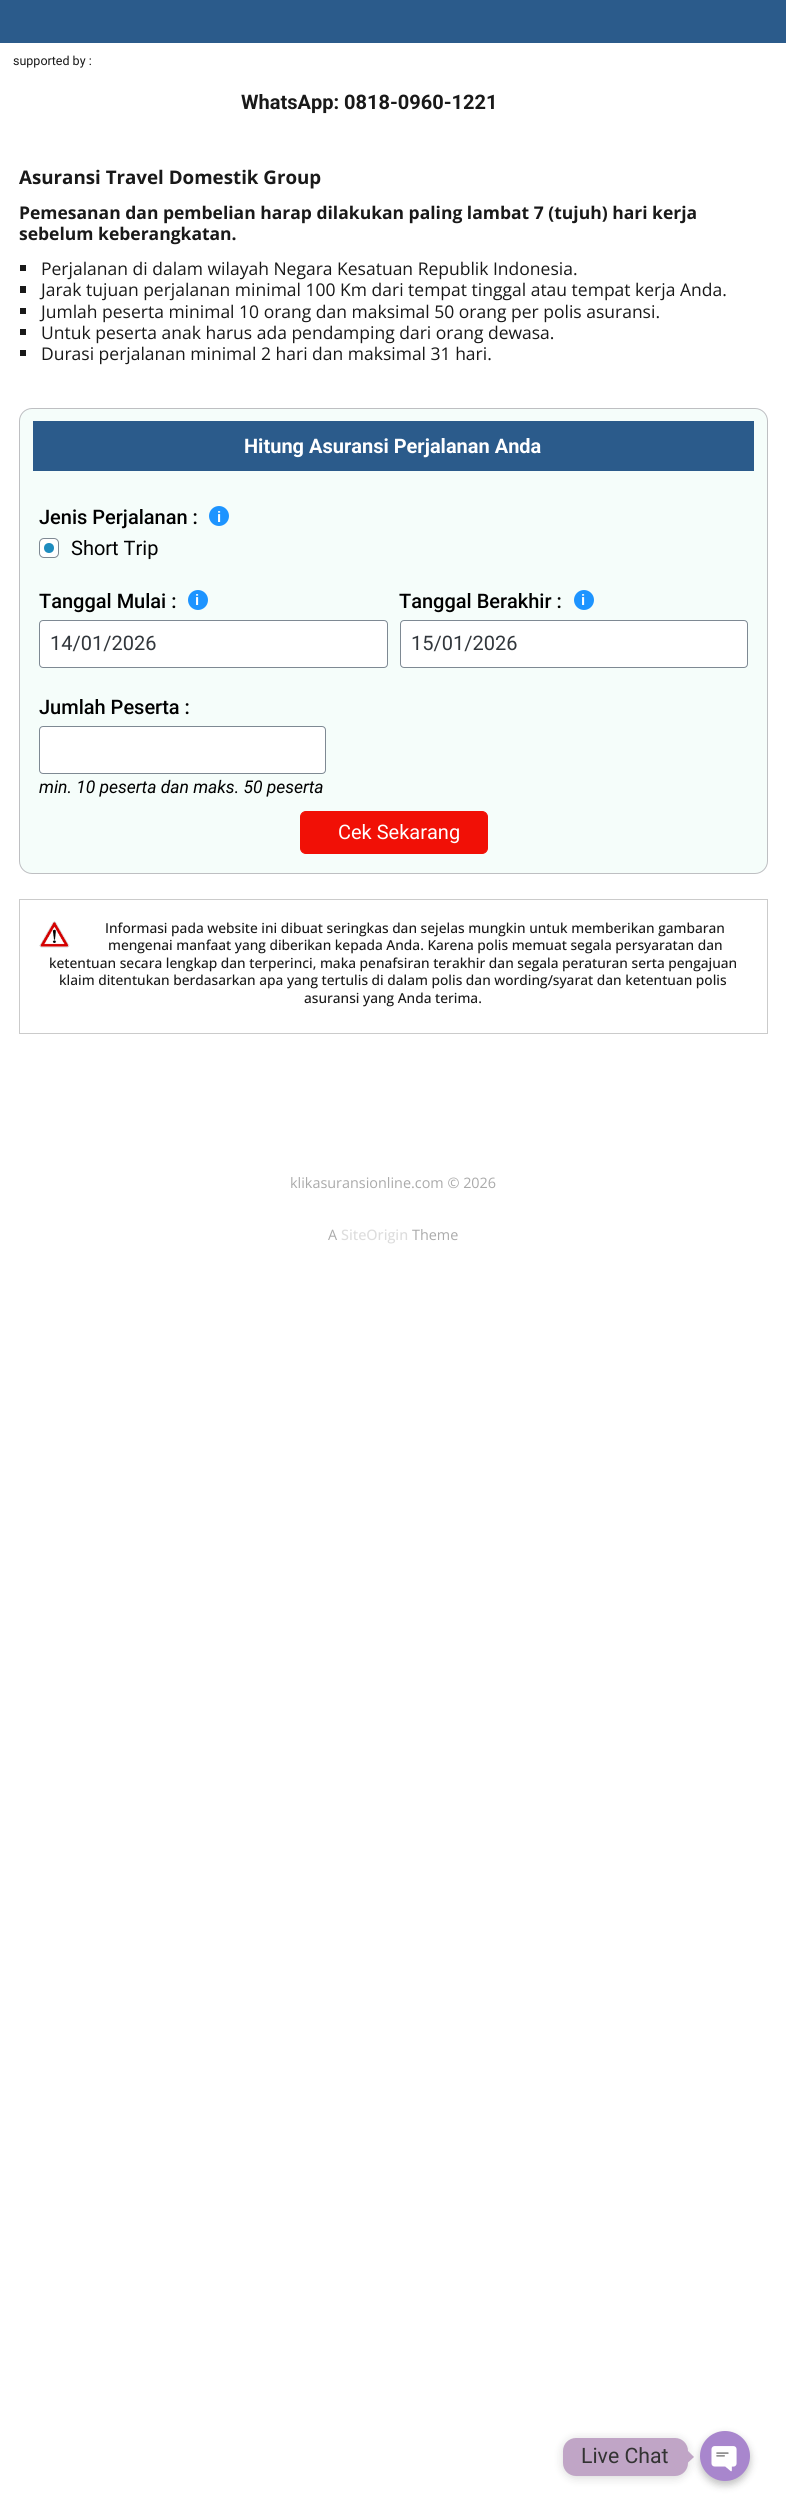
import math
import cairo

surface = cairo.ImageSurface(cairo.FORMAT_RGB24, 786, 2512)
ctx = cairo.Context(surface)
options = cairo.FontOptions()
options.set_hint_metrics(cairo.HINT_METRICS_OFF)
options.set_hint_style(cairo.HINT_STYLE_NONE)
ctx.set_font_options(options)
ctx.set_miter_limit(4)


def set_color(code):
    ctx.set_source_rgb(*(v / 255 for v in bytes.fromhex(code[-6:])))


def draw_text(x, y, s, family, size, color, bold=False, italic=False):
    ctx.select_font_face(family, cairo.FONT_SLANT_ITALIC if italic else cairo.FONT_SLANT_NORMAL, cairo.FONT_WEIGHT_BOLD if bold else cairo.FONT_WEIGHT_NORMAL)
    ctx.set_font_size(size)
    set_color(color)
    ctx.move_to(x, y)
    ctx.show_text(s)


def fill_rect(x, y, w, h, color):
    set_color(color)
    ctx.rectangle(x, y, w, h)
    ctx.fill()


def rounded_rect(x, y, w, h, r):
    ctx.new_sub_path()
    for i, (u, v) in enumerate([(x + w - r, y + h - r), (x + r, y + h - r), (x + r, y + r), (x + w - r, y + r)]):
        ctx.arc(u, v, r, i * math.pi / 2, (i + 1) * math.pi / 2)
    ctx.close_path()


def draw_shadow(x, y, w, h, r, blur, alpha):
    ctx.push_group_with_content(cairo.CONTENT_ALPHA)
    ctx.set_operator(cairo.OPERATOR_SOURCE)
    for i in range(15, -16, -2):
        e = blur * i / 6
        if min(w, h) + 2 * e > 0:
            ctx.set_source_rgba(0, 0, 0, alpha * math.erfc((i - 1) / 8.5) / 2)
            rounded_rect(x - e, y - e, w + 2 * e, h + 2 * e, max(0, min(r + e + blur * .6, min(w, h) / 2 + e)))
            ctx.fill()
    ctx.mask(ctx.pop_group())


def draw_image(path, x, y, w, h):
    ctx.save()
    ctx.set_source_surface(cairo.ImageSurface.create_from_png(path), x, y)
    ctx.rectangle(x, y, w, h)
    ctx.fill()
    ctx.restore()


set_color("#ffffff")
ctx.paint()
fill_rect(0, 0, 786, 43, "#2b5b8b")
draw_text(13, 65, "supported by :", "Roboto", 12.5, "#191919")
draw_text(241, 109, "WhatsApp: 0818-0960-1221", "Roboto", 20, "#191919", bold=True)
draw_text(19, 184, "Asuransi Travel Domestik Group", "Open Sans", 18.75, "#191919", bold=True)
draw_text(19, 219, "Pemesanan dan pembelian harap dilakukan paling lambat 7 (tujuh) hari kerja", "Open Sans", 17.5, "#191919", bold=True)
draw_text(19, 240, "sebelum keberangkatan.", "Open Sans", 17.5, "#191919", bold=True)
fill_rect(20, 265, 6, 6, "#191919")
draw_text(41, 275, "Perjalanan di dalam wilayah Negara Kesatuan Republik Indonesia.", "Open Sans", 17.5, "#191919")
fill_rect(20, 286, 6, 7, "#191919")
draw_text(41, 296, "Jarak tujuan perjalanan minimal 100 Km dari tempat tinggal atau tempat kerja Anda.", "Open Sans", 17.5, "#191919")
fill_rect(20, 308, 6, 6, "#191919")
draw_text(41, 318, "Jumlah peserta minimal 10 orang dan maksimal 50 orang per polis asuransi.", "Open Sans", 17.5, "#191919")
fill_rect(20, 329, 6, 6, "#191919")
draw_text(41, 339, "Untuk peserta anak harus ada pendamping dari orang dewasa.", "Open Sans", 17.5, "#191919")
fill_rect(20, 350, 6, 6, "#191919")
draw_text(41, 360, "Durasi perjalanan minimal 2 hari dan maksimal 31 hari.", "Open Sans", 17.5, "#191919")
set_color("#f5fdfa")
rounded_rect(19.5, 408.5, 748, 465, 12.5)
ctx.fill_preserve()
set_color("#bebfc2")
ctx.set_line_width(1)
ctx.stroke()
fill_rect(33, 421, 721, 50, "#2b5b8b")
draw_text(244, 453, "Hitung Asuransi Perjalanan Anda", "Roboto", 20, "#ffffff", bold=True)
draw_text(39, 524, "Jenis Perjalanan :", "Roboto Medium", 20, "#000000")
set_color("#1d94ff")
ctx.new_path()
ctx.arc(219, 516, 10, 0, 2 * math.pi)
ctx.fill()
draw_text(217, 522, "i", "Liberation Sans", 15, "#ffffff", bold=True)
rounded_rect(39.5, 538.5, 19, 19, 4.5)
ctx.fill_preserve()
set_color("#7e8993")
ctx.stroke()
set_color("#1e8cbe")
ctx.arc(49, 548, 5, 0, 2 * math.pi)
ctx.fill()
draw_text(71, 555, "Short Trip", "Roboto", 20, "#000000")
draw_text(39, 608, "Tanggal Mulai :", "Roboto Medium", 20, "#000000")
set_color("#1d94ff")
ctx.new_path()
ctx.arc(198, 600, 10, 0, 2 * math.pi)
ctx.fill()
draw_text(195, 605, "i", "Liberation Sans", 15, "#ffffff", bold=True)
rounded_rect(39.5, 620.5, 348, 47, 3.5)
ctx.fill_preserve()
set_color("#7e8993")
ctx.stroke()
draw_text(50, 650, "14/01/2026", "Roboto", 20, "#32373c")
draw_text(399, 608, "Tanggal Berakhir :", "Roboto Medium", 20, "#000000")
set_color("#1d94ff")
ctx.new_path()
ctx.arc(584, 600, 10, 0, 2 * math.pi)
ctx.fill()
draw_text(581, 605, "i", "Liberation Sans", 15, "#ffffff", bold=True)
rounded_rect(400.5, 620.5, 347, 47, 3.5)
ctx.fill_preserve()
set_color("#7e8993")
ctx.stroke()
draw_text(411, 650, "15/01/2026", "Roboto", 20, "#32373c")
draw_text(39, 714, "Jumlah Peserta :", "Roboto Medium", 20, "#000000")
set_color("#ffffff")
rounded_rect(39.5, 726.5, 286, 47, 3.5)
ctx.fill_preserve()
set_color("#7e8993")
ctx.stroke()
draw_text(39, 793, "min. 10 peserta dan maks. 50 peserta", "Roboto", 17.5, "#000000", italic=True)
set_color("#f11006")
rounded_rect(300.5, 811.5, 187, 42, 5.5)
ctx.fill_preserve()
ctx.stroke()
draw_text(338, 839, "Cek Sekarang", "Roboto", 20, "#ffffff")
ctx.rectangle(19.5, 899.5, 748, 134)
set_color("#cbcbcb")
ctx.stroke()
draw_image("assets/img1.png", 39, 921, 31, 27)
draw_text(105, 933, "Informasi pada website ini dibuat seringkas dan sejelas mungkin untuk memberikan gambaran", "Open Sans Medium", 13.75, "#191919")
draw_text(108, 950, "mengenai manfaat yang diberikan kepada Anda. Karena polis memuat segala persyaratan dan", "Open Sans Medium", 13.75, "#191919")
draw_text(49, 968, "ketentuan secara lengkap dan terperinci, maka penafsiran terakhir dan segala peraturan serta pengajuan", "Open Sans Medium", 13.75, "#191919")
draw_text(59, 985, "klaim ditentukan berdasarkan apa yang tertulis di dalam polis dan wording/syarat dan ketentuan polis", "Open Sans Medium", 13.75, "#191919")
draw_text(304, 1003, "asuransi yang Anda terima.", "Open Sans Medium", 13.75, "#191919")
draw_text(290, 1188, "klikasuransionline.com © 2026", "Open Sans", 14.4, "#aaaaaa")
draw_text(328, 1240, "A", "Open Sans", 14.4, "#aaaaaa")
draw_text(341, 1240, "SiteOrigin", "Open Sans Medium", 14.4, "#dddddd")
draw_text(412, 1240, "Theme", "Open Sans", 14.4, "#aaaaaa")
set_color("#000000")
draw_shadow(563, 2439, 125, 39, 13, 5, 0.15)
set_color("#c0a5c6")
rounded_rect(563, 2438, 125, 38, 13)
ctx.fill()
draw_text(581, 2463, "Live Chat", "Roboto", 21.25, "#333333")
set_color("#c0a5c6")
ctx.new_path()
ctx.move_to(687.5, 2463)
ctx.line_to(687.5, 2450.5)
ctx.line_to(694, 2457)
ctx.close_path()
ctx.fill()
set_color("#000000")
draw_shadow(700, 2435, 50, 50, 25, 4, 0.25)
draw_image("assets/img2.png", 700, 2431, 50, 50)
surface.write_to_png("output.png")
